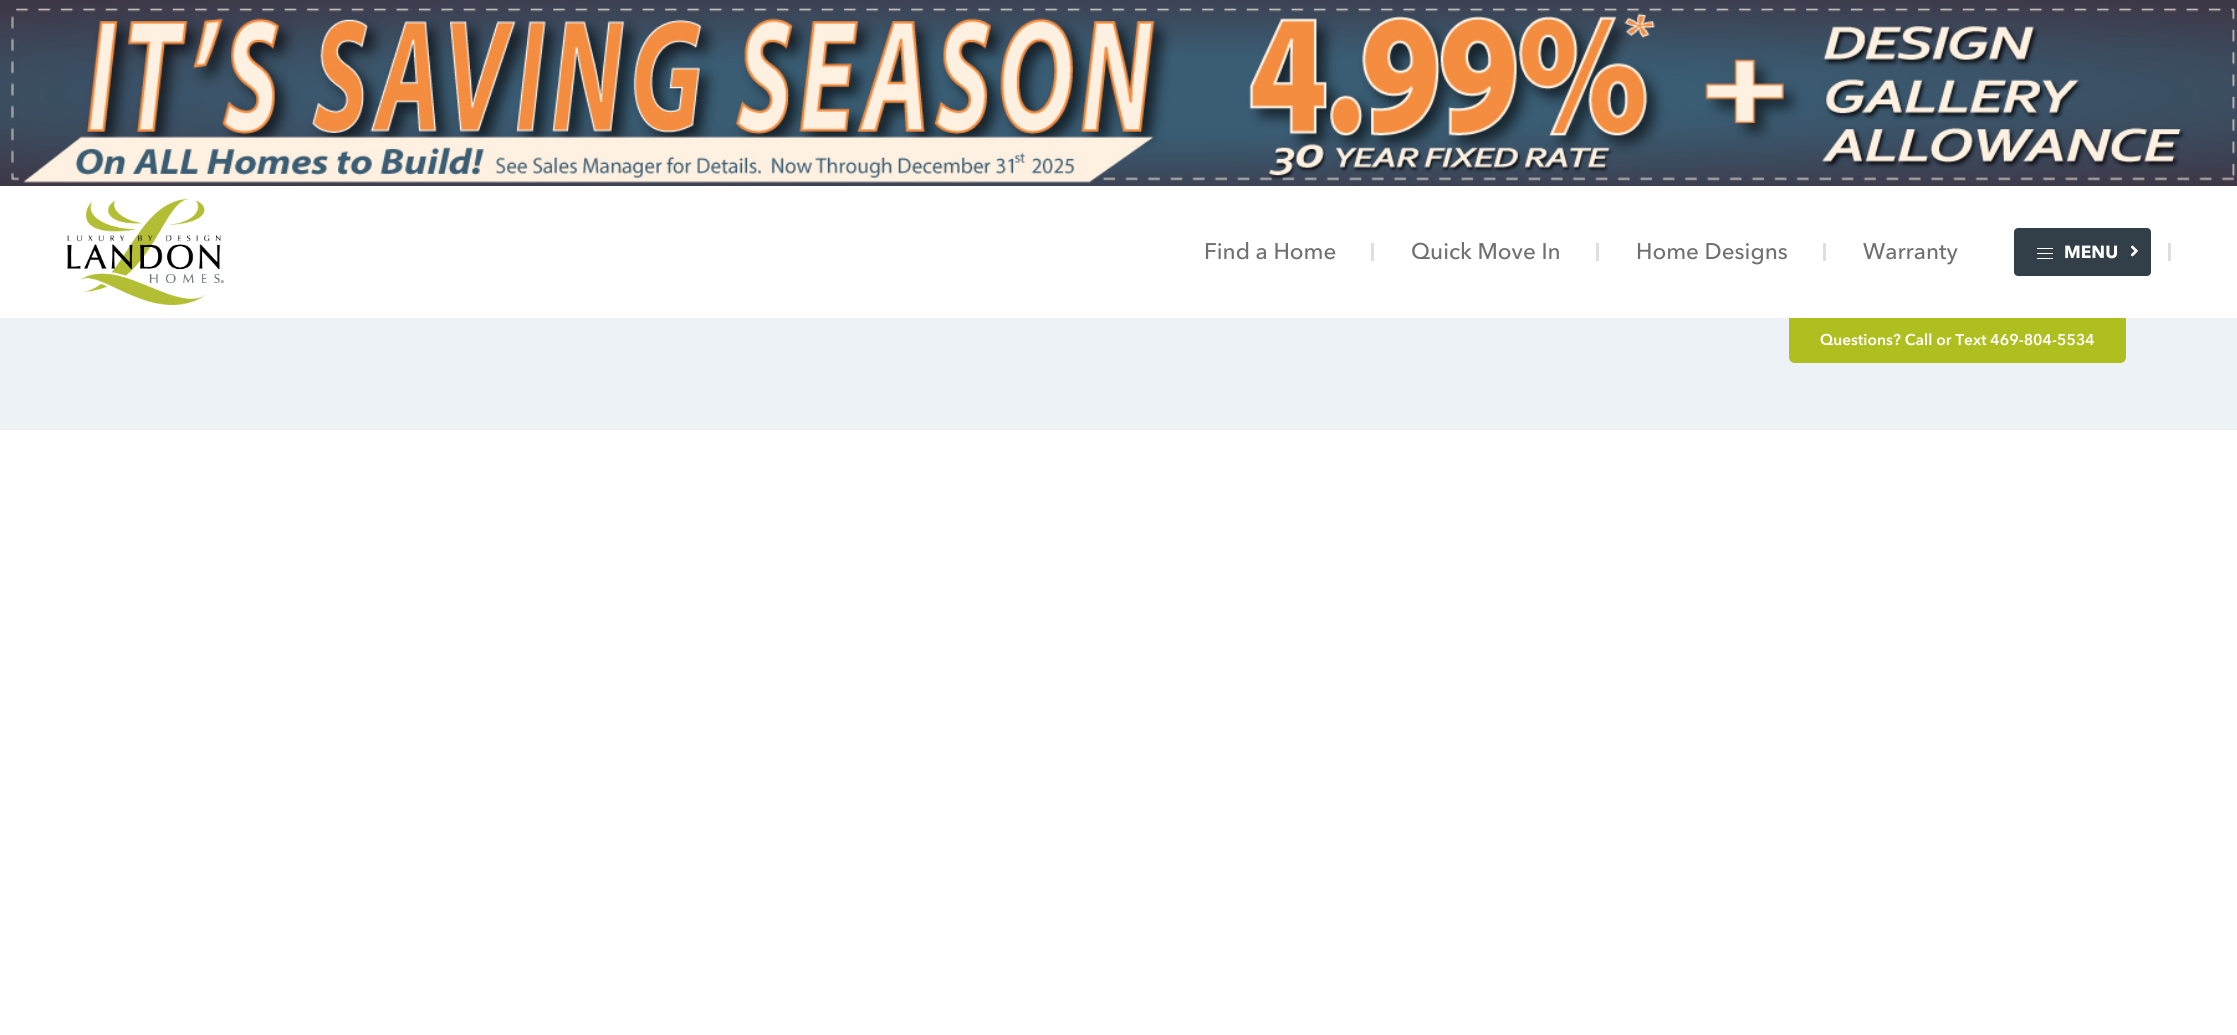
import math
import cairo

surface = cairo.ImageSurface(cairo.FORMAT_RGB24, 2237, 1035)
ctx = cairo.Context(surface)
options = cairo.FontOptions()
options.set_hint_metrics(cairo.HINT_METRICS_OFF)
options.set_hint_style(cairo.HINT_STYLE_NONE)
ctx.set_font_options(options)
ctx.set_miter_limit(4)


def set_color(code):
    ctx.set_source_rgb(*(v / 255 for v in bytes.fromhex(code[-6:])))


def draw_text(x, y, s, family, size, color, bold=False, italic=False):
    ctx.select_font_face(family, cairo.FONT_SLANT_ITALIC if italic else cairo.FONT_SLANT_NORMAL, cairo.FONT_WEIGHT_BOLD if bold else cairo.FONT_WEIGHT_NORMAL)
    ctx.set_font_size(size)
    set_color(color)
    ctx.move_to(x, y)
    ctx.show_text(s)


def fill_rect(x, y, w, h, color):
    set_color(color)
    ctx.rectangle(x, y, w, h)
    ctx.fill()


def rounded_rect(x, y, w, h, r):
    ctx.new_sub_path()
    for i, (u, v) in enumerate([(x + w - r, y + h - r), (x + r, y + h - r), (x + r, y + r), (x + w - r, y + r)]):
        ctx.arc(u, v, r, i * math.pi / 2, (i + 1) * math.pi / 2)
    ctx.close_path()


def draw_image(path, x, y, w, h):
    ctx.save()
    ctx.set_source_surface(cairo.ImageSurface.create_from_png(path), x, y)
    ctx.rectangle(x, y, w, h)
    ctx.fill()
    ctx.restore()


set_color("#ffffff")
ctx.paint()
draw_image("assets/img1.png", 0, 0, 2237, 186)
draw_image("assets/img2.png", 67, 198, 157, 107)
draw_text(1204, 259, "Find a Home", "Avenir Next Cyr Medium", 22.5, "#707070")
fill_rect(1371, 243, 3, 18, "#dfdfdf")
draw_text(1411, 259, "Quick Move In", "Avenir Next Cyr Medium", 22.5, "#707070")
fill_rect(1596, 243, 3, 18, "#dfdfdf")
draw_text(1636, 259, "Home Designs", "Avenir Next Cyr Medium", 22.5, "#707070")
fill_rect(1823, 243, 3, 18, "#dfdfdf")
draw_text(1863, 259, "Warranty", "Avenir Next Cyr Medium", 22.5, "#707070")
set_color("#333f48")
rounded_rect(2015.5, 229.5, 134, 45, 2.5)
ctx.fill_preserve()
ctx.set_line_width(3)
ctx.stroke()
fill_rect(2037, 248, 16, 1, "#ffffff")
fill_rect(2037, 253, 16, 1, "#ffffff")
fill_rect(2037, 258, 16, 1, "#ffffff")
draw_text(2064, 258, "MENU", "Avenir Next Cyr", 17.5, "#ffffff", bold=True)
draw_image("assets/img3.png", 2130, 245, 8, 12)
fill_rect(2168, 243, 3, 18, "#dfdfdf")
fill_rect(0, 318, 2237, 112, "#edf2f7")
set_color("#b0bf20")
ctx.new_path()
ctx.move_to(1789, 318)
ctx.line_to(2126, 318)
ctx.line_to(2126, 357)
ctx.curve_to(2126, 360.5, 2123.5, 363, 2120, 363)
ctx.line_to(1795, 363)
ctx.curve_to(1791.5, 363, 1789, 360.5, 1789, 357)
ctx.close_path()
ctx.fill()
draw_text(1820, 345, "Questions? Call or Text 469-804-5534", "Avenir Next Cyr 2", 15.5, "#ffffff", bold=True)
surface.write_to_png("output.png")
